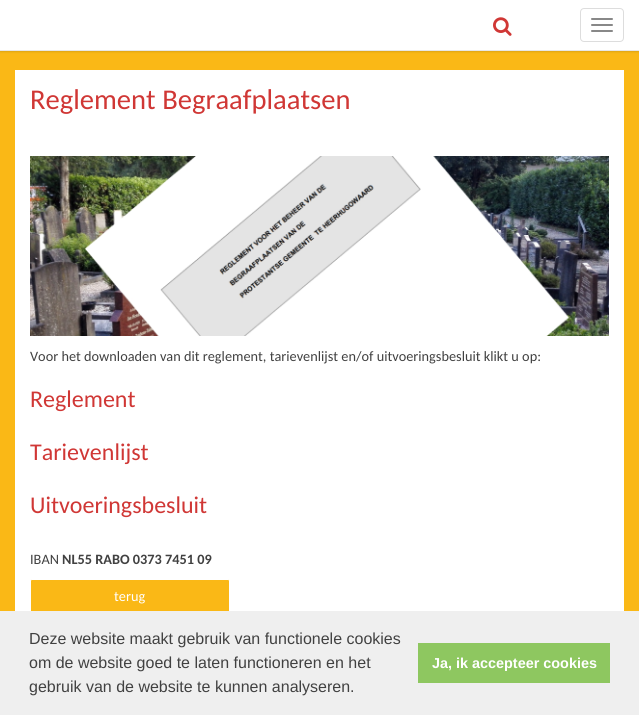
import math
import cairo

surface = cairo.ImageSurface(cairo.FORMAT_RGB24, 639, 715)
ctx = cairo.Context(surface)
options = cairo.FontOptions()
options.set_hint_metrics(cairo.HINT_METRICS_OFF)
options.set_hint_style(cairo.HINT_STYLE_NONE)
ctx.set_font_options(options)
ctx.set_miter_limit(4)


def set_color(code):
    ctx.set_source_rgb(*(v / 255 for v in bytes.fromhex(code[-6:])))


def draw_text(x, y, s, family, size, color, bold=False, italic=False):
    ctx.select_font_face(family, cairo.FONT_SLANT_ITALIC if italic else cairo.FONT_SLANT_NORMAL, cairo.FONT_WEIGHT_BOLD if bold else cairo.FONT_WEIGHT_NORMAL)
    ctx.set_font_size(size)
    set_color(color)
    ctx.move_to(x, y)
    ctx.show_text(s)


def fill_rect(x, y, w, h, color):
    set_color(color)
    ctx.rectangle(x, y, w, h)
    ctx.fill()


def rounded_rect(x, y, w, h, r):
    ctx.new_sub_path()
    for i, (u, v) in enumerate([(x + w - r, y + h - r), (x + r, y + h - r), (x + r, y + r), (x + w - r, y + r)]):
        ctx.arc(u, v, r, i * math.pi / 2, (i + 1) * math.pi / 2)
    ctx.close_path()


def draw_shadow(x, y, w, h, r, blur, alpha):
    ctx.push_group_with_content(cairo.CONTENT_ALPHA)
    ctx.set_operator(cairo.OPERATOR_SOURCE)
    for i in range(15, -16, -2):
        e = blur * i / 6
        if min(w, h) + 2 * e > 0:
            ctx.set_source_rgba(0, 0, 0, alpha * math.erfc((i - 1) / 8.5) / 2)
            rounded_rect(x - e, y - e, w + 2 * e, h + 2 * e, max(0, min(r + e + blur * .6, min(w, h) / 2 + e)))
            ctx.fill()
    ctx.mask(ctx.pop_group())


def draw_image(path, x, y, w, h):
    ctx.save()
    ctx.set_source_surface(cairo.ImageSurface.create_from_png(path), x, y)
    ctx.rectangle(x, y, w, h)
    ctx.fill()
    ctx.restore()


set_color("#fab816")
ctx.paint()
set_color("#000000")
draw_shadow(0, 0, 639, 51, 0, 1.5, 0.22)
fill_rect(0, 0, 639, 50, "#ffffff")
fill_rect(0, 50, 639, 1, "#e7e7e7")
draw_image("assets/img1.png", 493, 17, 19, 19)
rounded_rect(580.5, 8.5, 43, 33, 3.5)
set_color("#dddddd")
ctx.set_line_width(1)
ctx.stroke()
set_color("#888888")
rounded_rect(591, 18, 22, 2, 1)
ctx.fill()
rounded_rect(591, 24, 22, 2, 1)
ctx.fill()
rounded_rect(591, 30, 22, 2, 1)
ctx.fill()
fill_rect(15, 70, 609, 541, "#ffffff")
draw_text(30, 109, "Reglement Begraafplaatsen", "Carlito", 28.6, "#d03735")
draw_image("assets/img2.png", 30, 156, 579, 180)
draw_text(30, 361, "Voor het downloaden van dit reglement, tarievenlijst en/of uitvoeringsbesluit klikt u op:", "Carlito", 14.3, "#414141")
draw_text(30, 407, "Reglement", "Carlito", 24, "#d03735")
draw_text(30, 460, "Tarievenlijst", "Carlito", 24, "#d03735")
draw_text(30, 513, "Uitvoeringsbesluit", "Carlito", 24, "#d03735")
draw_text(30, 564, "IBAN", "Carlito", 14.3, "#414141")
draw_text(62, 564, "NL55 RABO 0373 7451 09", "Carlito", 14.3, "#414141", bold=True)
set_color("#fab816")
rounded_rect(30.5, 579.5, 199, 33, 1.5)
ctx.fill_preserve()
set_color("#ffffff")
ctx.stroke()
draw_text(114, 601, "terug", "Carlito", 14.3, "#ffffff")
fill_rect(0, 611, 639, 104, "#efefef")
draw_text(29, 644, "Deze website maakt gebruik van functionele cookies", "Liberation Sans", 16, "#414141")
draw_text(29, 668, "om de website goed te laten functioneren en het", "Liberation Sans", 16, "#414141")
draw_text(29, 692, "gebruik van de website te kunnen analyseren.", "Liberation Sans", 16, "#414141")
fill_rect(418, 643, 192, 40, "#8ec760")
draw_text(432, 668, "Ja, ik accepteer cookies", "Liberation Sans", 14.4, "#ffffff", bold=True)
surface.write_to_png("output.png")
